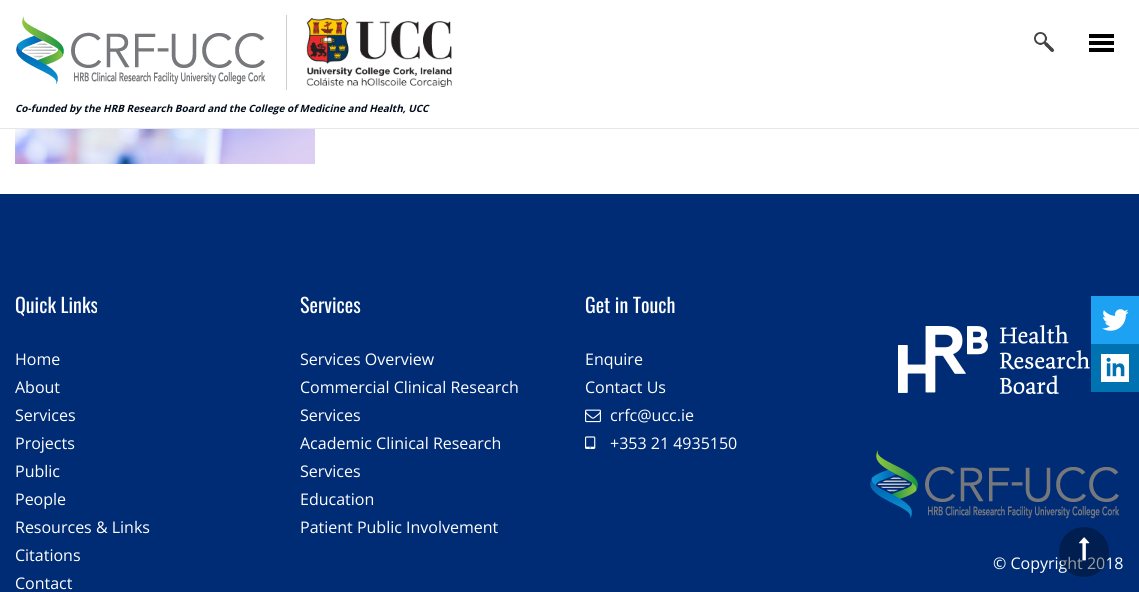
import math
import cairo

surface = cairo.ImageSurface(cairo.FORMAT_RGB24, 1139, 592)
ctx = cairo.Context(surface)
options = cairo.FontOptions()
options.set_hint_metrics(cairo.HINT_METRICS_OFF)
options.set_hint_style(cairo.HINT_STYLE_NONE)
ctx.set_font_options(options)
ctx.set_miter_limit(4)


def set_color(code):
    ctx.set_source_rgb(*(v / 255 for v in bytes.fromhex(code[-6:])))


def draw_text(x, y, s, family, size, color, bold=False, italic=False):
    ctx.select_font_face(family, cairo.FONT_SLANT_ITALIC if italic else cairo.FONT_SLANT_NORMAL, cairo.FONT_WEIGHT_BOLD if bold else cairo.FONT_WEIGHT_NORMAL)
    ctx.set_font_size(size)
    set_color(color)
    ctx.move_to(x, y)
    ctx.show_text(s)


def fill_rect(x, y, w, h, color):
    set_color(color)
    ctx.rectangle(x, y, w, h)
    ctx.fill()


def draw_image(path, x, y, w, h):
    ctx.save()
    ctx.set_source_surface(cairo.ImageSurface.create_from_png(path), x, y)
    ctx.rectangle(x, y, w, h)
    ctx.fill()
    ctx.restore()


set_color("#ffffff")
ctx.paint()
draw_image("assets/img1.png", 1089, 34, 25, 18)
draw_image("assets/img2.png", 1034, 32, 20, 20)
fill_rect(0, 128, 1139, 1, "#e7e7e7")
draw_image("assets/img3.png", 16, 16, 250, 69)
fill_rect(286, 15, 1, 75, "#cccccc")
draw_image("assets/img4.png", 306, 18, 146, 69)
draw_text(15, 112, "Co-funded by the HRB Research Board and the College of Medicine and Health, UCC", "Open Sans", 10, "#010d1a", bold=True, italic=True)
draw_image("assets/img5.png", 15, 129, 300, 35)
fill_rect(0, 194, 1139, 398, "#002c75")
draw_text(993, 569, "© Copyright 2018", "Open Sans", 16, "#ffffff")
ctx.set_source_rgba(0.004, 0.051, 0.102, 0.4)
ctx.new_path()
ctx.arc(1084, 552, 25, 0, 2 * math.pi)
ctx.fill()
draw_image("assets/img6.png", 1079, 537, 11, 24)
draw_text(15, 313, "Quick Links", "Oswald", 20, "#ffffff")
draw_text(15, 365, "Home", "Open Sans", 16, "#ffffff")
draw_text(15, 393, "About", "Open Sans", 16, "#ffffff")
draw_text(15, 421, "Services", "Open Sans", 16, "#ffffff")
draw_text(15, 449, "Projects", "Open Sans", 16, "#ffffff")
draw_text(15, 477, "Public", "Open Sans", 16, "#ffffff")
draw_text(15, 505, "People", "Open Sans", 16, "#ffffff")
draw_text(15, 533, "Resources & Links", "Open Sans", 16, "#ffffff")
draw_text(15, 561, "Citations", "Open Sans", 16, "#ffffff")
draw_text(15, 589, "Contact", "Open Sans", 16, "#ffffff")
draw_text(300, 313, "Services", "Oswald", 20, "#ffffff")
draw_text(300, 365, "Services Overview", "Open Sans", 16, "#ffffff")
draw_text(300, 393, "Commercial Clinical Research", "Open Sans", 16, "#ffffff")
draw_text(300, 421, "Services", "Open Sans", 16, "#ffffff")
draw_text(300, 449, "Academic Clinical Research", "Open Sans", 16, "#ffffff")
draw_text(300, 477, "Services", "Open Sans", 16, "#ffffff")
draw_text(300, 505, "Education", "Open Sans", 16, "#ffffff")
draw_text(300, 533, "Patient Public Involvement", "Open Sans", 16, "#ffffff")
draw_text(585, 313, "Get in Touch", "Oswald", 20, "#ffffff")
draw_text(585, 365, "Enquire", "Open Sans", 16, "#ffffff")
draw_text(585, 393, "Contact Us", "Open Sans", 16, "#ffffff")
draw_image("assets/img7.png", 585, 409, 16, 14)
draw_text(610, 421, "crfc@ucc.ie", "Open Sans", 16, "#ffffff")
draw_image("assets/img8.png", 585, 436, 11, 13)
draw_text(610, 449, "+353 21 4935150", "Open Sans", 16, "#ffffff")
draw_image("assets/img9.png", 898, 325, 192, 69)
draw_image("assets/img10.png", 870, 450, 250, 69)
fill_rect(1091, 296, 48, 48, "#1da1f2")
draw_image("assets/img11.png", 1102, 309, 27, 22)
fill_rect(1091, 344, 48, 48, "#0072b1")
draw_image("assets/img12.png", 1101, 354, 28, 28)
surface.write_to_png("output.png")
